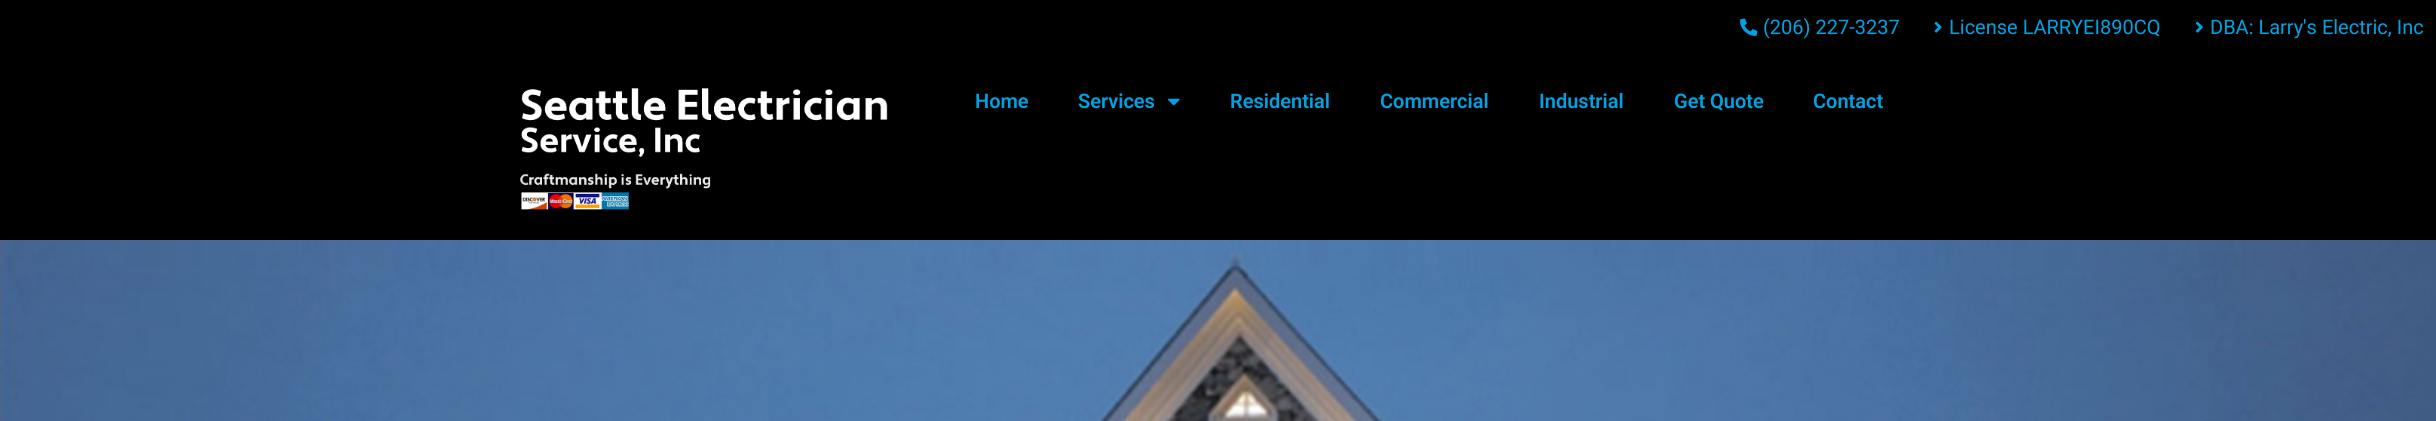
import math
import cairo

surface = cairo.ImageSurface(cairo.FORMAT_RGB24, 2436, 421)
ctx = cairo.Context(surface)
options = cairo.FontOptions()
options.set_hint_metrics(cairo.HINT_METRICS_OFF)
options.set_hint_style(cairo.HINT_STYLE_NONE)
ctx.set_font_options(options)
ctx.set_miter_limit(4)


def set_color(code):
    ctx.set_source_rgb(*(v / 255 for v in bytes.fromhex(code[-6:])))


def draw_text(x, y, s, family, size, color, bold=False, italic=False):
    ctx.select_font_face(family, cairo.FONT_SLANT_ITALIC if italic else cairo.FONT_SLANT_NORMAL, cairo.FONT_WEIGHT_BOLD if bold else cairo.FONT_WEIGHT_NORMAL)
    ctx.set_font_size(size)
    set_color(color)
    ctx.move_to(x, y)
    ctx.show_text(s)


def draw_image(path, x, y, w, h):
    ctx.save()
    ctx.set_source_surface(cairo.ImageSurface.create_from_png(path), x, y)
    ctx.rectangle(x, y, w, h)
    ctx.fill()
    ctx.restore()


set_color("#000000")
ctx.paint()
draw_image("assets/img1.png", 1740, 18, 18, 18)
draw_text(1763, 34, "(206) 227-3237", "Roboto", 20, "#00a2e2")
draw_image("assets/img2.png", 1934, 21, 8, 12)
draw_text(1949, 34, "License LARRYEI890CQ", "Roboto", 20, "#00a2e2")
draw_image("assets/img3.png", 2195, 21, 8, 12)
draw_text(2210, 34, "DBA: Larry's Electric, Inc", "Roboto", 20, "#00a2e2")
draw_image("assets/img4.png", 520, 88, 368, 122)
draw_text(975, 108, "Home", "Roboto SemiBold", 20, "#00a2e2")
draw_text(1078, 108, "Services", "Roboto SemiBold", 20, "#00a2e2")
draw_image("assets/img5.png", 1168, 98, 12, 8)
draw_text(1230, 108, "Residential", "Roboto SemiBold", 20, "#00a2e2")
draw_text(1380, 108, "Commercial", "Roboto SemiBold", 20, "#00a2e2")
draw_text(1539, 108, "Industrial", "Roboto SemiBold", 20, "#00a2e2")
draw_text(1674, 108, "Get Quote", "Roboto SemiBold", 20, "#00a2e2")
draw_text(1813, 108, "Contact", "Roboto SemiBold", 20, "#00a2e2")
draw_image("assets/img6.png", 0, 240, 2436, 181)
surface.write_to_png("output.png")
